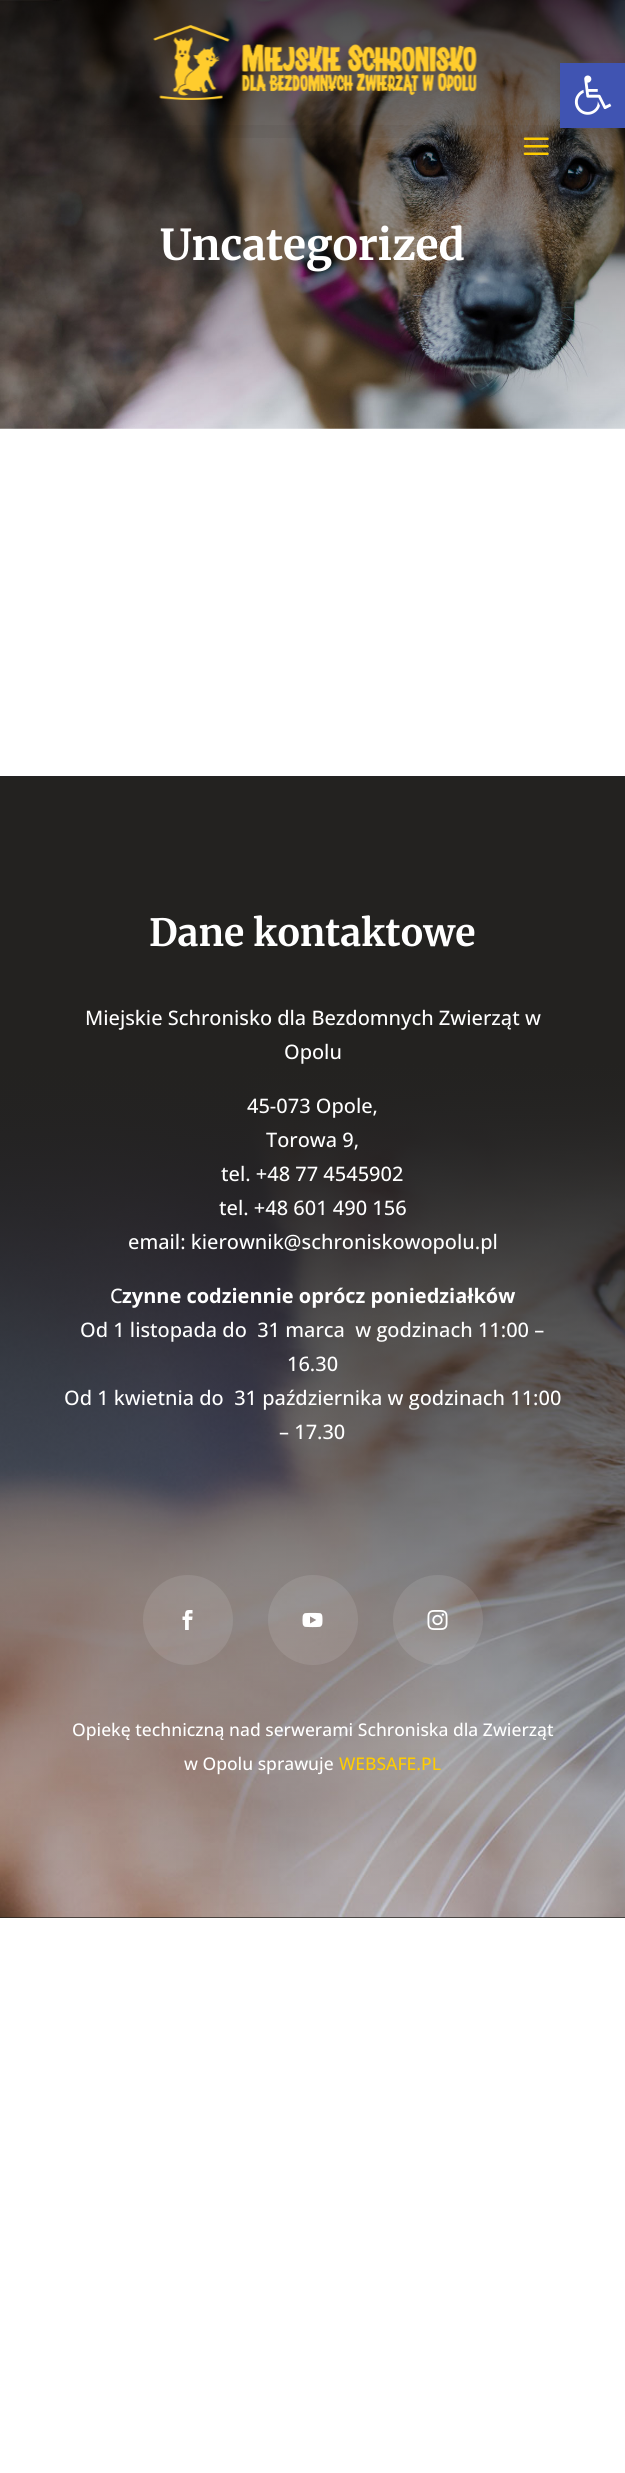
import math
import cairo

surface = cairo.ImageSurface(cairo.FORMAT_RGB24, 625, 2473)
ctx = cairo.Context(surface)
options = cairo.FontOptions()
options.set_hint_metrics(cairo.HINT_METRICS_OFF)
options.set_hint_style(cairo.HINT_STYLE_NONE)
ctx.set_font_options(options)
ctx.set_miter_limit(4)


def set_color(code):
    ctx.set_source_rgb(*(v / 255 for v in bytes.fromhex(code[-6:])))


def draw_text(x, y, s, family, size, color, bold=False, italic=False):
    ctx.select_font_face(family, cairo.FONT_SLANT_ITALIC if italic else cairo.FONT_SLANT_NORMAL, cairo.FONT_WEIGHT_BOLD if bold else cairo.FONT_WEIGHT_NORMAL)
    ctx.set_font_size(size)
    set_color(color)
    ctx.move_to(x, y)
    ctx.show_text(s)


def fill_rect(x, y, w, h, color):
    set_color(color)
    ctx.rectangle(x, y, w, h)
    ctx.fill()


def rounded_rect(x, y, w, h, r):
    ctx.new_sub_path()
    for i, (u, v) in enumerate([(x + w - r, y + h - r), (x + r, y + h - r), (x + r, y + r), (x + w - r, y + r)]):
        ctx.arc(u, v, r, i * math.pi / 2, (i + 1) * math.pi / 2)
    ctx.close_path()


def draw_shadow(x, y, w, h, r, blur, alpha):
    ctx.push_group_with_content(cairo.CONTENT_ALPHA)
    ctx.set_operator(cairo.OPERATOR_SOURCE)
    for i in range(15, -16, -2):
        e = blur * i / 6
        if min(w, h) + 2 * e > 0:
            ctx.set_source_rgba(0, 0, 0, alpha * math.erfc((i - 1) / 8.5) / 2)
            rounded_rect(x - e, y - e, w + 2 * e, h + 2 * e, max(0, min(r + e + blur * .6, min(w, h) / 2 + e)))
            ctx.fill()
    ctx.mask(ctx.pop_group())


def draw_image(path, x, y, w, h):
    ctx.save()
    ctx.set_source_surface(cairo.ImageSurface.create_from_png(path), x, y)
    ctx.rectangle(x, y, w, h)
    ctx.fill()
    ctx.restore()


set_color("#ffffff")
ctx.paint()
draw_image("assets/img4.png", 0, 0, 625, 429)
ctx.set_source_rgba(0, 0, 0, 0.05)
ctx.rectangle(85, 125, 478, 13)
ctx.fill()
draw_image("assets/img3.png", 523, 137, 26, 18)
set_color("#000000")
draw_shadow(560, 63, 65, 65, 0, 6, 0.1)
fill_rect(560, 63, 65, 65, "#4054b2")
draw_image("assets/img1.png", 574, 75, 38, 40)
draw_image("assets/img2.png", 153, 25, 324, 75)
draw_text(160, 260, "Uncategorized", "Merriweather Light", 42.5, "#ffffff")
fill_rect(0, 776, 625, 1142, "#232220")
draw_image("assets/img5.png", 0, 776, 625, 1142)
draw_text(149, 946, "Dane kontaktowe", "Merriweather Light", 37.5, "#ffffff")
draw_text(85, 1025, "Miejskie Schronisko dla Bezdomnych Zwierząt w", "Open Sans Medium", 20, "#ffffff")
draw_text(284, 1059, "Opolu", "Open Sans Medium", 20, "#ffffff")
draw_text(247, 1113, "45-073 Opole,", "Open Sans Medium", 20, "#ffffff")
draw_text(266, 1147, "Torowa 9,", "Open Sans Medium", 20, "#ffffff")
draw_text(221, 1181, "tel. +48 77 4545902", "Open Sans Medium", 20, "#ffffff")
draw_text(219, 1215, "tel. +48 601 490 156", "Open Sans Medium", 20, "#ffffff")
draw_text(128, 1249, "email: kierownik@schroniskowopolu.pl", "Open Sans Medium", 20, "#ffffff")
draw_text(110, 1303, "C", "Open Sans Medium", 20, "#ffffff")
draw_text(122, 1303, "zynne codziennie oprócz poniedziałków", "Open Sans", 20, "#ffffff", bold=True)
draw_text(80, 1337, "Od 1 listopada do  31 marca  w godzinach 11:00 –", "Open Sans Medium", 20, "#ffffff")
draw_text(287, 1371, "16.30", "Open Sans Medium", 20, "#ffffff")
draw_text(64, 1405, "Od 1 kwietnia do  31 października w godzinach 11:00", "Open Sans Medium", 20, "#ffffff")
draw_text(279, 1439, "– 17.30", "Open Sans Medium", 20, "#ffffff")
ctx.set_source_rgba(1, 1, 1, 0.1)
ctx.new_path()
ctx.arc(188, 1620, 45, 0, 2 * math.pi)
ctx.fill()
draw_image("assets/img6.png", 182, 1610, 11, 20)
ctx.arc(313, 1620, 45, 0, 2 * math.pi)
ctx.fill()
draw_image("assets/img7.png", 302, 1612, 21, 16)
ctx.arc(438, 1620, 45, 0, 2 * math.pi)
ctx.fill()
draw_image("assets/img8.png", 427, 1610, 21, 20)
draw_text(72, 1736, "Opiekę techniczną nad serwerami Schroniska dla Zwierząt", "Open Sans Medium", 17.5, "#ffffff")
draw_text(184, 1770, "w Opolu sprawuje", "Open Sans Medium", 17.5, "#ffffff")
draw_text(339, 1770, "WEBSAFE.PL", "Open Sans Medium", 17.5, "#ffcc00")
surface.write_to_png("output.png")
